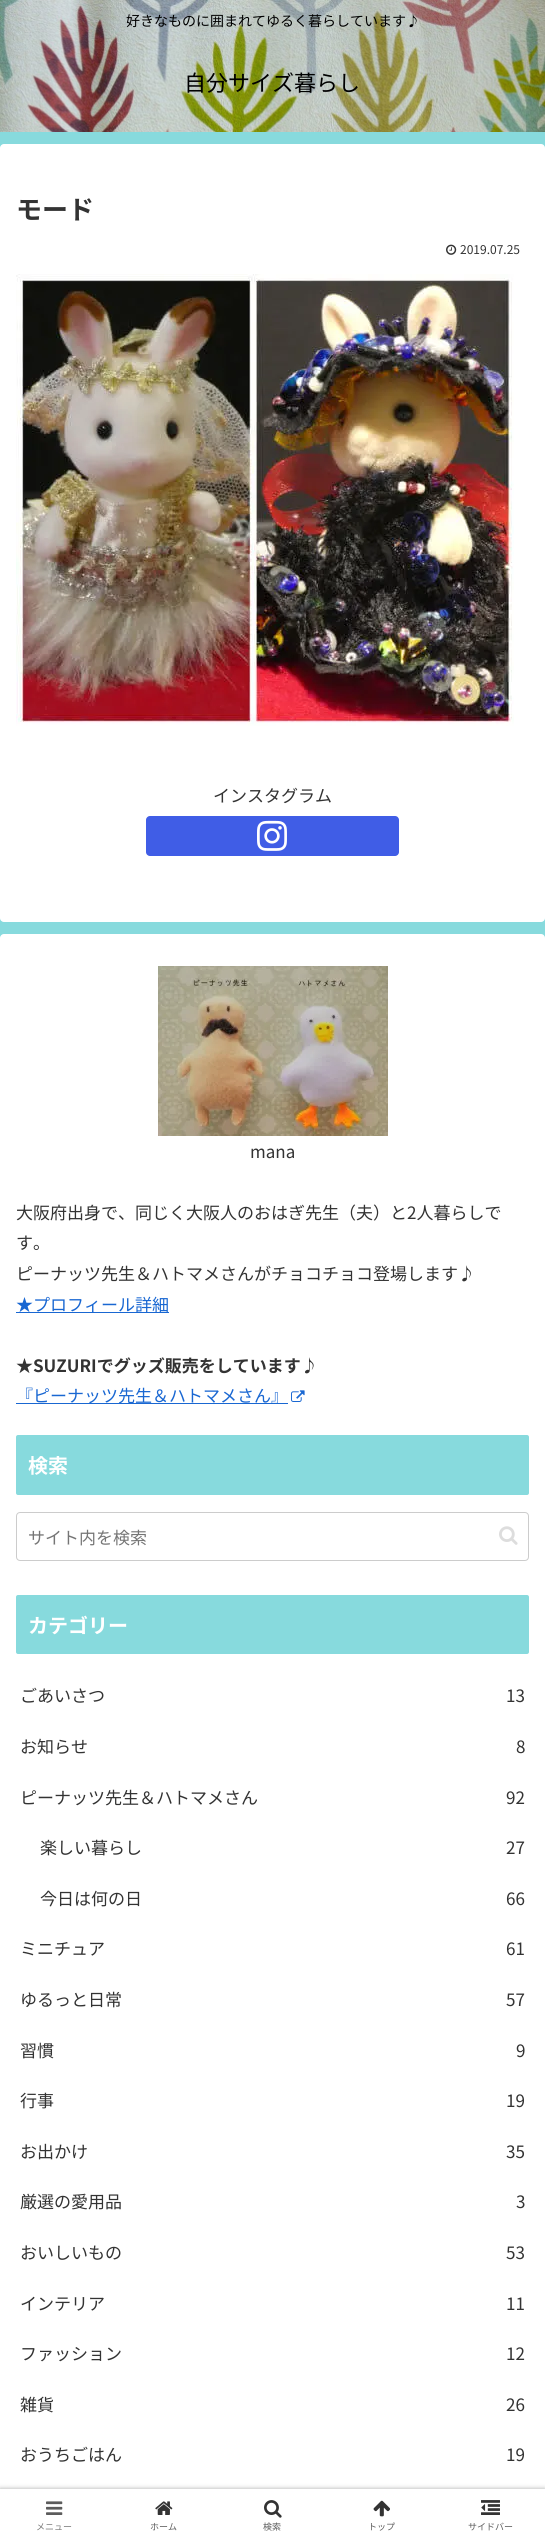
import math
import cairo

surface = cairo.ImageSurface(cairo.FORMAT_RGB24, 545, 2539)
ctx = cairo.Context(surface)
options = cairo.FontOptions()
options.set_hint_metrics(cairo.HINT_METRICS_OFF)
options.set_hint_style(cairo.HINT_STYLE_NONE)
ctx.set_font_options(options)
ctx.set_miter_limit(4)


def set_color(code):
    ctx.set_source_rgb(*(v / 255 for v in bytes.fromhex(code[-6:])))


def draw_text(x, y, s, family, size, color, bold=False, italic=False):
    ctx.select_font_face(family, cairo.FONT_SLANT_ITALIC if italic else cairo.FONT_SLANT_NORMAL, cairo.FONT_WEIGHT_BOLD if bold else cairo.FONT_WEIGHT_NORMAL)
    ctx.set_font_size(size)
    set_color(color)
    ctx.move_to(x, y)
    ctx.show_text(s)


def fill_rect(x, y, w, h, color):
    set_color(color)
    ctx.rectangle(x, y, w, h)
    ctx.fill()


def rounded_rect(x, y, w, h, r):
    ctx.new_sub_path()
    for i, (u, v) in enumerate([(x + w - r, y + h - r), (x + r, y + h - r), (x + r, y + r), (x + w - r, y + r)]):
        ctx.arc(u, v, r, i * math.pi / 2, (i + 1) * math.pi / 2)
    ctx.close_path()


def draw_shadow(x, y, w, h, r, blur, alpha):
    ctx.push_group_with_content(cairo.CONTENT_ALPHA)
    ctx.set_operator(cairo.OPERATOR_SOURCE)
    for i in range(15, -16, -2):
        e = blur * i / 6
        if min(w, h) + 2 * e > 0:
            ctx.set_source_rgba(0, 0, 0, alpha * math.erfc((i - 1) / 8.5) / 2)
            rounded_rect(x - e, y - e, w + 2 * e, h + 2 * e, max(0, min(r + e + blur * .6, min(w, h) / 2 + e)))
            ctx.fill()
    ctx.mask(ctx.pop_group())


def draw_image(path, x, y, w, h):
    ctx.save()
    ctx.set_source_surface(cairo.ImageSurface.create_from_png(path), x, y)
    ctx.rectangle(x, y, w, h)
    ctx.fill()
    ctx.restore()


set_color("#87dadd")
ctx.paint()
draw_image("assets/img1.png", 0, 0, 545, 132)
draw_text(126, 26, "好きなものに囲まれてゆるく暮らしています♪", "Noto Sans JP", 14, "#000000")
draw_text(184, 91, "自分サイズ暮らし", "Noto Sans JP", 22, "#000000")
set_color("#ffffff")
rounded_rect(0, 144, 545, 778, 4)
ctx.fill()
draw_text(16, 219, "モード", "Noto Sans JP", 26, "#333333", bold=True)
draw_image("assets/img2.png", 446, 244, 11, 11)
draw_text(460, 254, "2019.07.25", "Noto Sans JP", 12, "#333333")
draw_image("assets/img3.png", 16, 274, 498, 452)
draw_text(213, 802, "インスタグラム", "Noto Sans JP", 17, "#333333")
set_color("#405de6")
rounded_rect(146, 816, 253, 40, 4)
ctx.fill()
draw_image("assets/img4.png", 257, 820, 30, 31)
set_color("#ffffff")
rounded_rect(0, 934, 545, 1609, 4)
ctx.fill()
draw_image("assets/img5.png", 158, 966, 230, 170)
draw_text(250, 1158, "mana", "Noto Sans JP", 17, "#333333")
draw_text(16, 1219, "大阪府出身で、同じく大阪人のおはぎ先生（夫）と2人暮らしで", "Noto Sans JP", 17, "#333333")
draw_text(16, 1249, "す。", "Noto Sans JP", 17, "#333333")
draw_text(16, 1280, "ピーナッツ先生＆ハトマメさんがチョコチョコ登場します♪", "Noto Sans JP", 17, "#333333")
fill_rect(16, 1312, 153, 1, "#1967d2")
draw_text(16, 1311, "★プロフィール詳細", "Noto Sans JP", 17, "#1967d2")
draw_text(16, 1372, "★SUZURIでグッズ販売をしています♪", "Noto Sans JP", 17, "#333333", bold=True)
fill_rect(16, 1403, 272, 1, "#1967d2")
draw_text(16, 1402, "『ピーナッツ先生＆ハトマメさん』", "Noto Sans JP", 17, "#1967d2")
draw_image("assets/img6.png", 291, 1390, 14, 12)
set_color("#87dadd")
rounded_rect(16, 1435, 513, 60, 2)
ctx.fill()
draw_text(28, 1473, "検索", "Noto Sans JP", 20, "#ffffff", bold=True)
rounded_rect(16.5, 1512.5, 512, 48, 3.5)
set_color("#cccccc")
ctx.set_line_width(1)
ctx.stroke()
draw_text(28, 1544, "サイト内を検索", "Noto Sans JP", 17, "#757575")
draw_image("assets/img7.png", 499, 1526, 19, 19)
set_color("#87dadd")
rounded_rect(16, 1595, 513, 59, 2)
ctx.fill()
draw_text(28, 1633, "カテゴリー", "Noto Sans JP", 20, "#ffffff", bold=True)
draw_text(20, 1702, "ごあいさつ", "Noto Sans JP", 17, "#333333")
draw_text(506, 1702, "13", "Noto Sans JP", 17, "#333333")
draw_text(20, 1753, "お知らせ", "Noto Sans JP", 17, "#333333")
draw_text(516, 1753, "8", "Noto Sans JP", 17, "#333333")
draw_text(20, 1804, "ピーナッツ先生＆ハトマメさん", "Noto Sans JP", 17, "#333333")
draw_text(506, 1804, "92", "Noto Sans JP", 17, "#333333")
draw_text(40, 1854, "楽しい暮らし", "Noto Sans JP", 17, "#333333")
draw_text(506, 1854, "27", "Noto Sans JP", 17, "#333333")
draw_text(40, 1905, "今日は何の日", "Noto Sans JP", 17, "#333333")
draw_text(506, 1905, "66", "Noto Sans JP", 17, "#333333")
draw_text(20, 1955, "ミニチュア", "Noto Sans JP", 17, "#333333")
draw_text(506, 1955, "61", "Noto Sans JP", 17, "#333333")
draw_text(20, 2006, "ゆるっと日常", "Noto Sans JP", 17, "#333333")
draw_text(506, 2006, "57", "Noto Sans JP", 17, "#333333")
draw_text(20, 2057, "習慣", "Noto Sans JP", 17, "#333333")
draw_text(516, 2057, "9", "Noto Sans JP", 17, "#333333")
draw_text(20, 2107, "行事", "Noto Sans JP", 17, "#333333")
draw_text(506, 2107, "19", "Noto Sans JP", 17, "#333333")
draw_text(20, 2158, "お出かけ", "Noto Sans JP", 17, "#333333")
draw_text(506, 2158, "35", "Noto Sans JP", 17, "#333333")
draw_text(20, 2208, "厳選の愛用品", "Noto Sans JP", 17, "#333333")
draw_text(516, 2208, "3", "Noto Sans JP", 17, "#333333")
draw_text(20, 2259, "おいしいもの", "Noto Sans JP", 17, "#333333")
draw_text(506, 2259, "53", "Noto Sans JP", 17, "#333333")
draw_text(20, 2310, "インテリア", "Noto Sans JP", 17, "#333333")
draw_text(506, 2310, "11", "Noto Sans JP", 17, "#333333")
draw_text(20, 2360, "ファッション", "Noto Sans JP", 17, "#333333")
draw_text(506, 2360, "12", "Noto Sans JP", 17, "#333333")
draw_text(20, 2411, "雑貨", "Noto Sans JP", 17, "#333333")
draw_text(506, 2411, "26", "Noto Sans JP", 17, "#333333")
draw_text(20, 2461, "おうちごはん", "Noto Sans JP", 17, "#333333")
draw_text(506, 2461, "19", "Noto Sans JP", 17, "#333333")
set_color("#a9a9a9")
draw_shadow(0, 2489, 545, 50, 0, 2.5, 1)
fill_rect(0, 2489, 545, 50, "#ffffff")
draw_image("assets/img8.png", 46, 2501, 17, 14)
draw_text(36, 2530, "メニュー", "Noto Sans JP", 9, "#7c7c7c")
draw_image("assets/img9.png", 155, 2501, 18, 14)
draw_text(150, 2530, "ホーム", "Noto Sans JP", 9, "#5c5c5c")
draw_image("assets/img10.png", 264, 2500, 18, 18)
draw_text(263, 2530, "検索", "Noto Sans JP", 9, "#5c5c5c")
draw_image("assets/img11.png", 373, 2500, 17, 17)
draw_text(368, 2530, "トップ", "Noto Sans JP", 9, "#5c5c5c")
draw_image("assets/img12.png", 481, 2500, 19, 15)
draw_text(468, 2530, "サイドバー", "Noto Sans JP", 9, "#5c5c5c")
surface.write_to_png("output.png")
